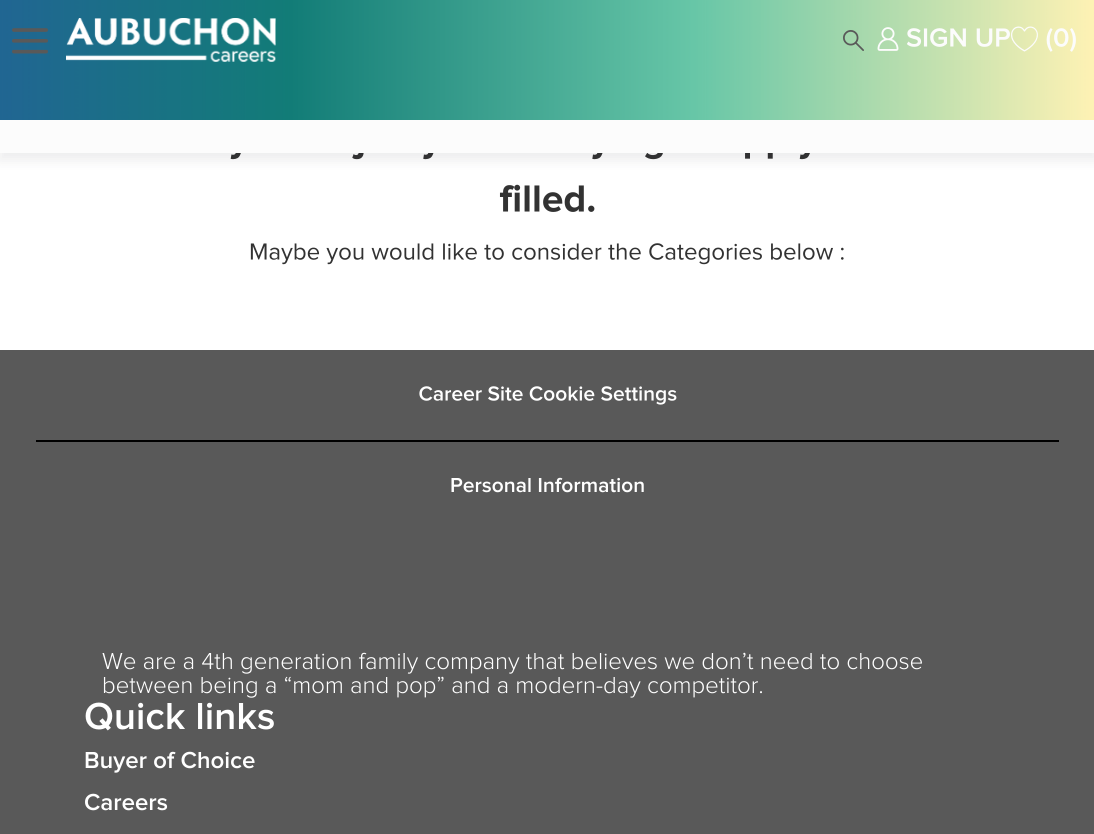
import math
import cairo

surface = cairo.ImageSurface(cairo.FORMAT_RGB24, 1094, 834)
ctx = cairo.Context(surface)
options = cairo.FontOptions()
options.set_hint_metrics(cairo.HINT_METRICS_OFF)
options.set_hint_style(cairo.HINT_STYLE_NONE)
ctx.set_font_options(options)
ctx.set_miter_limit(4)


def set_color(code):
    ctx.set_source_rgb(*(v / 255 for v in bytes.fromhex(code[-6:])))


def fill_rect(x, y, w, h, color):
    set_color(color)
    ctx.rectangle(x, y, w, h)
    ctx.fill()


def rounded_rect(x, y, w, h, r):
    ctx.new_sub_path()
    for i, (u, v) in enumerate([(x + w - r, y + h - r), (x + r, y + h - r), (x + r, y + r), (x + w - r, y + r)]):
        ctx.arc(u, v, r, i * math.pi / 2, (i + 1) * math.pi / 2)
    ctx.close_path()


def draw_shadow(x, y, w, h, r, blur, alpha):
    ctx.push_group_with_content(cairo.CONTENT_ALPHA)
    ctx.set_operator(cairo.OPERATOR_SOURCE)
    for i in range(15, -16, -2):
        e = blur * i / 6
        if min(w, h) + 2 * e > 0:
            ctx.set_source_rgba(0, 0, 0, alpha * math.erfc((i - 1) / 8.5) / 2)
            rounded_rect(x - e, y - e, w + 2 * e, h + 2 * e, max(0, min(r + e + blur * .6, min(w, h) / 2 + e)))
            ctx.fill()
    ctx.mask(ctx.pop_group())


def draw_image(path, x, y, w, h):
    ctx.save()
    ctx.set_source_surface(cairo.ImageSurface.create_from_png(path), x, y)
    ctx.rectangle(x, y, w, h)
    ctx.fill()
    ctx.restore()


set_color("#ffffff")
ctx.paint()
draw_image("assets/img9.png", 230, 153, 580, 7)
set_color("#22242b")
draw_shadow(-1, 5, 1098, 156, 0, 6, 0.08)
draw_image("assets/img1.png", 0, 0, 1094, 120)
draw_image("assets/img2.png", 12, 28, 36, 26)
draw_image("assets/img3.png", 66, 18, 210, 44)
draw_image("assets/img4.png", 843, 30, 21, 21)
draw_image("assets/img5.png", 877, 27, 22, 24)
draw_image("assets/img6.png", 907, 28, 103, 19)
draw_image("assets/img7.png", 1011, 26, 27, 26)
draw_image("assets/img8.png", 1046, 28, 30, 24)
fill_rect(0, 120, 1094, 33, "#fcfcfc")
draw_image("assets/img10.png", 499, 184, 96, 28)
draw_image("assets/img11.png", 250, 243, 594, 22)
fill_rect(0, 350, 1094, 484, "#595959")
draw_image("assets/img12.png", 419, 386, 258, 19)
fill_rect(36, 440, 1023, 2, "#000000")
draw_image("assets/img13.png", 451, 477, 193, 16)
draw_image("assets/img14.png", 102, 652, 820, 22)
draw_image("assets/img15.png", 103, 676, 659, 22)
draw_image("assets/img16.png", 85, 702, 189, 29)
draw_image("assets/img17.png", 85, 751, 170, 22)
draw_image("assets/img18.png", 85, 793, 83, 18)
surface.write_to_png("output.png")
